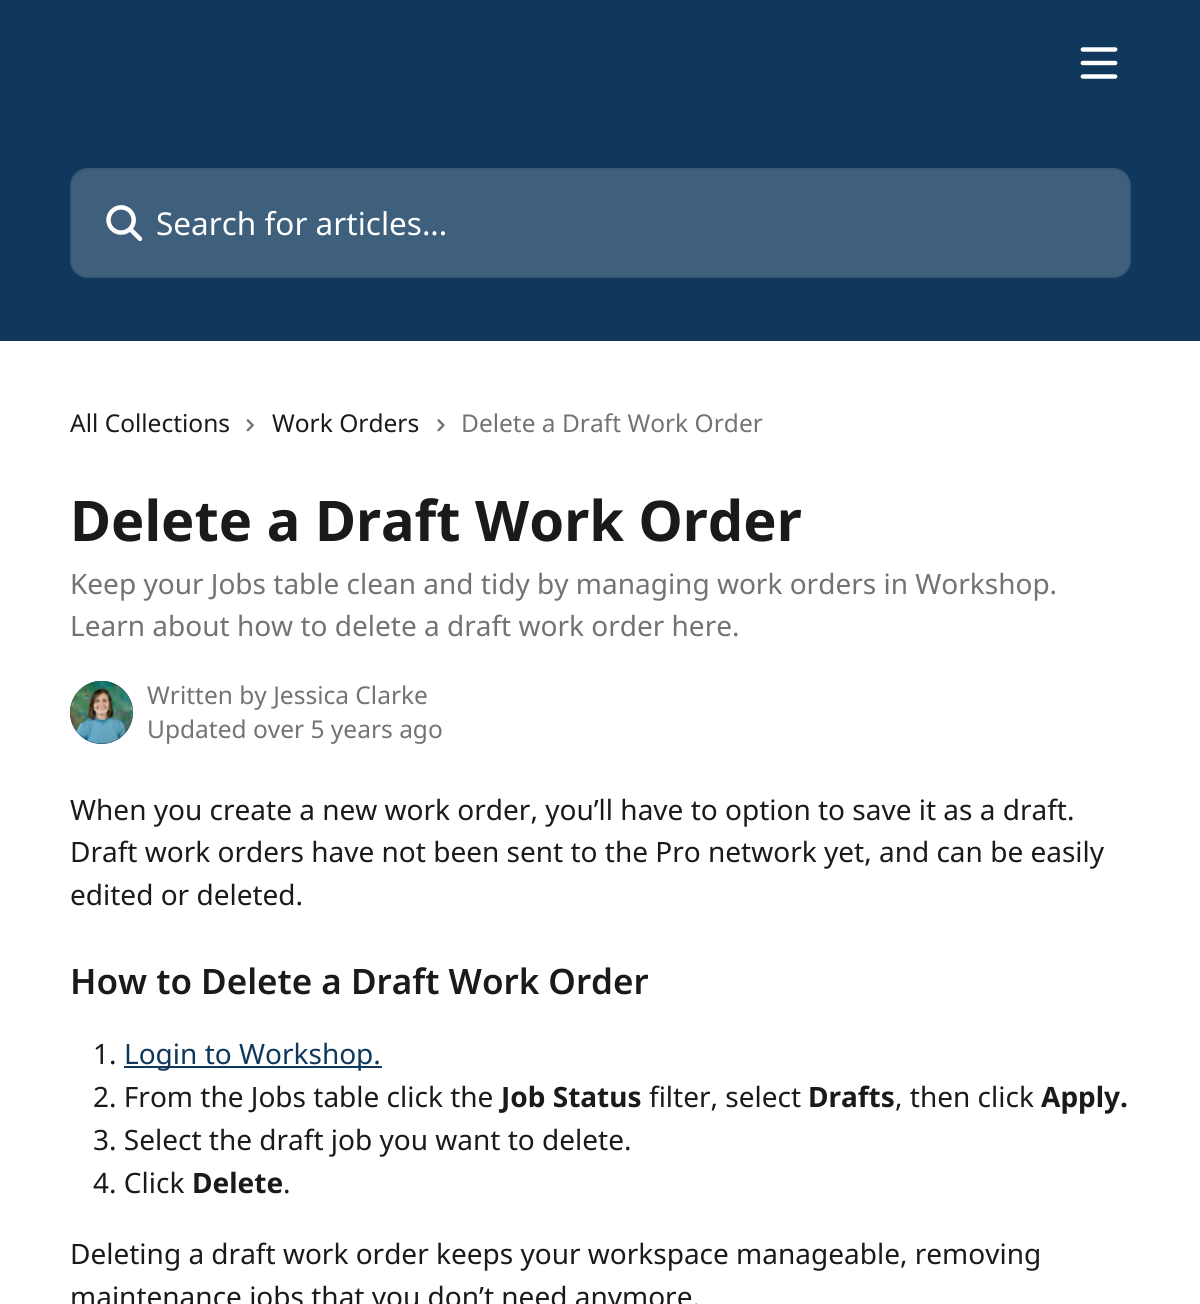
import math
import cairo

surface = cairo.ImageSurface(cairo.FORMAT_RGB24, 1200, 1304)
ctx = cairo.Context(surface)
options = cairo.FontOptions()
options.set_hint_metrics(cairo.HINT_METRICS_OFF)
options.set_hint_style(cairo.HINT_STYLE_NONE)
ctx.set_font_options(options)
ctx.set_miter_limit(4)


def set_color(code):
    ctx.set_source_rgb(*(v / 255 for v in bytes.fromhex(code[-6:])))


def draw_text(x, y, s, family, size, color, bold=False, italic=False):
    ctx.select_font_face(family, cairo.FONT_SLANT_ITALIC if italic else cairo.FONT_SLANT_NORMAL, cairo.FONT_WEIGHT_BOLD if bold else cairo.FONT_WEIGHT_NORMAL)
    ctx.set_font_size(size)
    set_color(color)
    ctx.move_to(x, y)
    ctx.show_text(s)


def fill_rect(x, y, w, h, color):
    set_color(color)
    ctx.rectangle(x, y, w, h)
    ctx.fill()


def rounded_rect(x, y, w, h, r):
    ctx.new_sub_path()
    for i, (u, v) in enumerate([(x + w - r, y + h - r), (x + r, y + h - r), (x + r, y + r), (x + w - r, y + r)]):
        ctx.arc(u, v, r, i * math.pi / 2, (i + 1) * math.pi / 2)
    ctx.close_path()


def draw_image(path, x, y, w, h):
    ctx.save()
    ctx.set_source_surface(cairo.ImageSurface.create_from_png(path), x, y)
    ctx.rectangle(x, y, w, h)
    ctx.fill()
    ctx.restore()


set_color("#ffffff")
ctx.paint()
fill_rect(0, 0, 1200, 341, "#0f385c")
draw_image("assets/img1.png", 1080, 47, 38, 32)
set_color("#3f607d")
rounded_rect(70, 168, 1061, 110, 18)
ctx.fill()
rounded_rect(71, 169, 1059, 108, 17)
ctx.set_source_rgba(0, 0, 0, 0.08)
ctx.stroke()
draw_image("assets/img2.png", 106, 205, 37, 37)
draw_text(156, 235, "Search for articles...", "Noto Sans", 31.5, "#ffffff")
draw_text(70, 432, "All Collections", "Noto Sans", 24.5, "#1a1a1a")
draw_image("assets/img3.png", 246, 419, 8, 13)
draw_text(272, 432, "Work Orders", "Noto Sans", 24.5, "#1a1a1a")
draw_image("assets/img4.png", 437, 419, 8, 13)
draw_text(461, 432, "Delete a Draft Work Order", "Noto Sans", 24.5, "#737373")
draw_text(70, 541, "Delete a Draft Work Order", "Noto Sans", 56, "#1a1a1a", bold=True)
draw_text(70, 594, "Keep your Jobs table clean and tidy by managing work orders in Workshop.", "Noto Sans", 28, "#737373")
draw_text(70, 636, "Learn about how to delete a draft work order here.", "Noto Sans", 28, "#737373")
set_color("#0f385c")
ctx.new_path()
ctx.arc(101.5, 712.5, 31.5, 0, 2 * math.pi)
ctx.fill()
draw_image("assets/img5.png", 70, 680, 63, 64)
draw_text(147, 704, "Written by Jessica Clarke", "Noto Sans", 24.5, "#737373")
draw_text(147, 738, "Updated over 5 years ago", "Noto Sans", 24.5, "#737373")
draw_text(70, 820, "When you create a new work order, you’ll have to option to save it as a draft.", "Noto Sans", 28, "#1a1a1a")
draw_text(70, 862, "Draft work orders have not been sent to the Pro network yet, and can be easily", "Noto Sans", 28, "#1a1a1a")
draw_text(70, 905, "edited or deleted.", "Noto Sans", 28, "#1a1a1a")
draw_text(70, 994, "How to Delete a Draft Work Order", "Noto Sans SemiBold", 35, "#1a1a1a")
draw_text(93, 1064, "1.", "Noto Sans", 28, "#1a1a1a")
fill_rect(124, 1066, 258, 2, "#0f385c")
draw_text(124, 1064, "Login to Workshop.", "Noto Sans", 28, "#0f385c")
draw_text(93, 1107, "2. From the Jobs table click the", "Noto Sans", 28, "#1a1a1a")
draw_text(501, 1107, "Job Status", "Noto Sans", 28, "#1a1a1a", bold=True)
draw_text(649, 1107, "filter, select", "Noto Sans", 28, "#1a1a1a")
draw_text(808, 1107, "Drafts", "Noto Sans", 28, "#1a1a1a", bold=True)
draw_text(895, 1107, ", then click", "Noto Sans", 28, "#1a1a1a")
draw_text(1041, 1107, "Apply.", "Noto Sans", 28, "#1a1a1a", bold=True)
draw_text(93, 1150, "3. Select the draft job you want to delete.", "Noto Sans", 28, "#1a1a1a")
draw_text(93, 1193, "4. Click", "Noto Sans", 28, "#1a1a1a")
draw_text(192, 1193, "Delete", "Noto Sans", 28, "#1a1a1a", bold=True)
draw_text(283, 1193, ".", "Noto Sans", 28, "#1a1a1a")
draw_text(70, 1264, "Deleting a draft work order keeps your workspace manageable, removing", "Noto Sans", 28, "#1a1a1a")
draw_text(70, 1307, "maintenance jobs that you don’t need anymore.", "Noto Sans", 28, "#1a1a1a")
surface.write_to_png("output.png")
